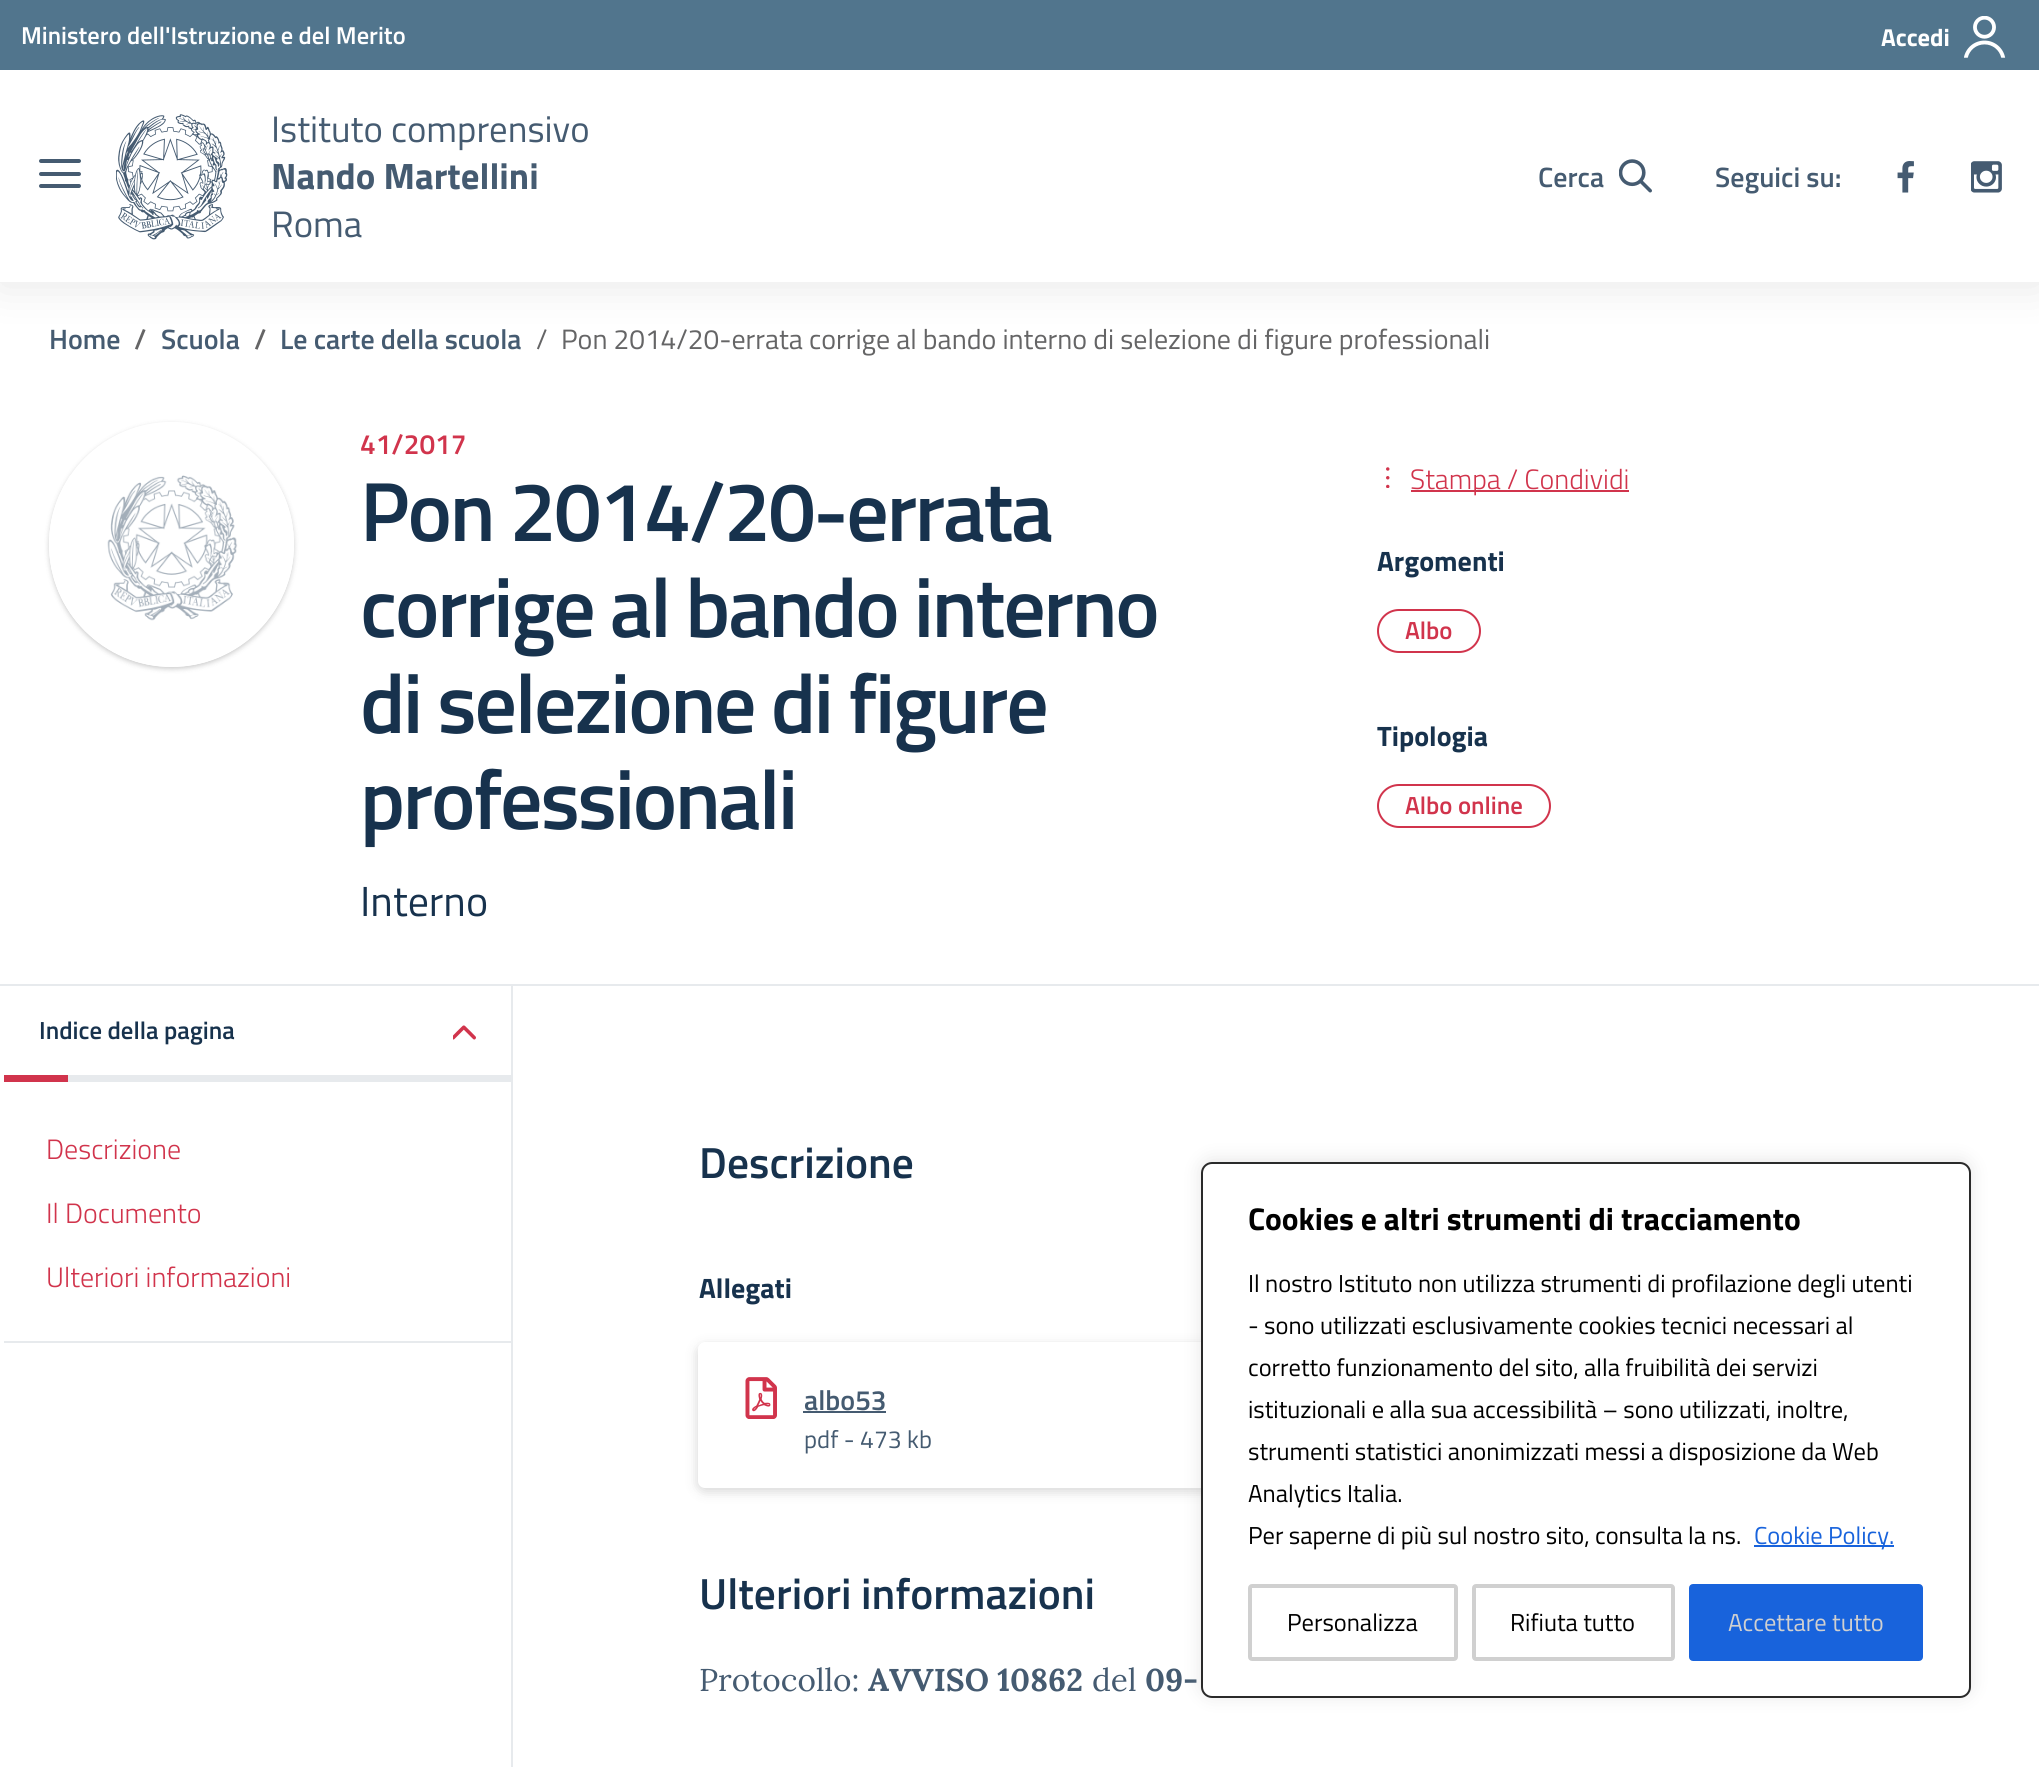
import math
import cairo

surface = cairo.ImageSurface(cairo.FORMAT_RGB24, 2039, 1767)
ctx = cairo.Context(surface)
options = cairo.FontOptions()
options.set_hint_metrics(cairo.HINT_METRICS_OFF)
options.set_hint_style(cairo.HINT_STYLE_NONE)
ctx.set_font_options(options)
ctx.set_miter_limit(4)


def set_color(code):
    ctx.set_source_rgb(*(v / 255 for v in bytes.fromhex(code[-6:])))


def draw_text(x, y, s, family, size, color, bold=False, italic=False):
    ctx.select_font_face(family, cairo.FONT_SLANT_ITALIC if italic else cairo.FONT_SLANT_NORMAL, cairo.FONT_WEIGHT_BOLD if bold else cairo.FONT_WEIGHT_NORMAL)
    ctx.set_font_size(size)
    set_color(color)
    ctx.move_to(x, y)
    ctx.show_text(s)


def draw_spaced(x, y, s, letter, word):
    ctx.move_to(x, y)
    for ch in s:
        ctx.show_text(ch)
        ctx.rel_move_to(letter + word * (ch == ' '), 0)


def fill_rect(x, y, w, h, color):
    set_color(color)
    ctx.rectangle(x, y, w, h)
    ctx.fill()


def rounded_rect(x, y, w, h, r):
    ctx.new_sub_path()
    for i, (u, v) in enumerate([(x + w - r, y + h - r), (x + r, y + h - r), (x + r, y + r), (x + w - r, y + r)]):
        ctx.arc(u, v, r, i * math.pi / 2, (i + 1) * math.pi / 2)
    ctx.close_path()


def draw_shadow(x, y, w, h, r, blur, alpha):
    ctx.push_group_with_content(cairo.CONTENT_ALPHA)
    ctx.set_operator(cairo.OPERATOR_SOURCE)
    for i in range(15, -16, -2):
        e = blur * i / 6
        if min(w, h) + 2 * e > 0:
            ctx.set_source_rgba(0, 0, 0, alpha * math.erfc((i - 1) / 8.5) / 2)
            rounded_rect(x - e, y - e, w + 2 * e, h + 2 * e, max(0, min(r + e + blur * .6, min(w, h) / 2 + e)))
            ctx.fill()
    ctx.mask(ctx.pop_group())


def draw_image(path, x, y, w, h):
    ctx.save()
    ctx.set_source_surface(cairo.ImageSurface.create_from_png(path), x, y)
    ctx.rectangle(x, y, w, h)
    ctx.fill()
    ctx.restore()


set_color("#ffffff")
ctx.paint()
set_color("#000000")
draw_shadow(0, 4, 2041, 281, 0, 21.5, 0.1)
fill_rect(0, 70, 2039, 212, "#ffffff")
fill_rect(0, 0, 2039, 70, "#51758d")
draw_text(21, 44, "Ministero dell'Istruzione e del Merito", "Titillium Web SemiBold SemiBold", 24.5, "#ffffff")
draw_text(1881, 46, "Accedi", "Titillium Web", 24.5, "#ffffff", bold=True)
draw_image("assets/img1.png", 1964, 16, 42, 42)
set_color("#455b71")
rounded_rect(39, 172, 42, 4, 2)
ctx.fill()
rounded_rect(39, 159, 42, 4, 2)
ctx.fill()
rounded_rect(39, 184, 42, 4, 2)
ctx.fill()
draw_image("assets/img2.png", 116, 114, 112, 126)
draw_text(271, 142, "Istituto comprensivo", "Titillium Web", 36.75, "#455b71")
draw_text(271, 189, "Nando Martellini", "Titillium Web", 36.75, "#455b71", bold=True)
draw_text(271, 237, "Roma", "Titillium Web", 36.75, "#455b71")
draw_text(1538, 187, "Cerca", "Titillium Web SemiBold SemiBold", 28, "#455b71")
draw_image("assets/img3.png", 1619, 159, 33, 34)
draw_text(1715, 187, "Seguici su:", "Titillium Web SemiBold SemiBold", 28, "#455b71")
draw_image("assets/img4.png", 1897, 161, 17, 32)
draw_image("assets/img5.png", 1971, 161, 31, 32)
draw_text(49, 349, "Home", "Titillium Web SemiBold SemiBold", 28, "#455b71")
draw_text(134, 349, "/", "Titillium Web SemiBold SemiBold", 28, "#656566")
draw_text(161, 349, "Scuola", "Titillium Web SemiBold SemiBold", 28, "#455b71")
draw_text(254, 349, "/", "Titillium Web SemiBold SemiBold", 28, "#656566")
draw_text(280, 349, "Le carte della scuola", "Titillium Web SemiBold SemiBold", 28, "#455b71")
draw_text(536, 349, "/", "Titillium Web", 28, "#656566")
draw_text(561, 349, "Pon 2014/20-errata corrige al bando interno di selezione di figure professionali", "Titillium Web", 28, "#656566")
ctx.save()
ctx.set_fill_rule(cairo.FILL_RULE_EVEN_ODD)
ctx.new_path()
ctx.move_to(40, 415)
ctx.line_to(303, 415)
ctx.line_to(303, 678)
ctx.line_to(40, 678)
ctx.close_path()
ctx.move_to(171.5, 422)
ctx.curve_to(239, 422, 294, 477, 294, 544.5)
ctx.curve_to(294, 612, 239, 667, 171.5, 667)
ctx.curve_to(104, 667, 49, 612, 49, 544.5)
ctx.curve_to(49, 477, 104, 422, 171.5, 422)
ctx.close_path()
ctx.clip()
set_color("#000000")
draw_shadow(49, 424, 245, 245, 122.5, 2.5, 0.2)
ctx.restore()
draw_image("assets/img6.png", 49, 475, 245, 192)
draw_text(360, 454, "41/2017", "Titillium Web SemiBold SemiBold", 28, "#d1344c")
ctx.set_font_size(84)
set_color("#17324d")
draw_spaced(360, 541, "Pon 2014/20-errata", -2.25, 0)
draw_spaced(360, 637, "corrige al bando interno", -2.25, 0)
draw_spaced(360, 733, "di selezione di figure", -2.25, 0)
draw_spaced(360, 829, "professionali", -2.25, 0)
draw_text(360, 916, "Interno", "Titillium Web", 42, "#17324d")
draw_image("assets/img7.png", 1386, 467, 4, 21)
fill_rect(1411, 490, 218, 2, "#d1344c")
draw_text(1410, 489, "Stampa / Condividi", "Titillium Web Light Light", 28, "#d1344c")
draw_text(1377, 571, "Argomenti", "Titillium Web", 28, "#17324d", bold=True)
rounded_rect(1378, 610, 102, 42, 21)
set_color("#d1344c")
ctx.stroke()
draw_text(1405, 639, "Albo", "Titillium Web SemiBold SemiBold", 24.75, "#d1344c")
draw_text(1377, 746, "Tipologia", "Titillium Web", 28, "#17324d", bold=True)
rounded_rect(1378, 785, 172, 42, 21)
set_color("#d1344c")
ctx.stroke()
draw_text(1405, 814, "Albo online", "Titillium Web SemiBold SemiBold", 24.75, "#d1344c")
fill_rect(0, 984, 2039, 2, "#e7eaed")
draw_text(39, 1039, "Indice della pagina", "Titillium Web SemiBold SemiBold", 24.75, "#17324d")
draw_image("assets/img8.png", 453, 1025, 23, 15)
fill_rect(4, 1075, 64, 7, "#d1344c")
fill_rect(68, 1075, 445, 7, "#e7eaed")
fill_rect(4, 1341, 509, 2, "#e7eaed")
draw_text(46, 1159, "Descrizione", "Titillium Web Light Light", 28, "#d1344c")
draw_text(46, 1223, "Il Documento", "Titillium Web Light Light", 28, "#d1344c")
draw_text(46, 1287, "Ulteriori informazioni", "Titillium Web Light Light", 28, "#d1344c")
fill_rect(511, 985, 2, 782, "#e7eaed")
draw_text(699, 1178, "Descrizione", "Titillium Web SemiBold SemiBold", 43.5, "#17324d")
draw_text(699, 1298, "Allegati", "Titillium Web", 28, "#17324d", bold=True)
set_color("#000000")
draw_shadow(698, 1346, 644, 145, 7, 6, 0.17)
set_color("#ffffff")
rounded_rect(698, 1342, 644, 146, 7)
ctx.fill()
draw_image("assets/img9.png", 745, 1377, 32, 42)
draw_text(804, 1410, "albo53", "Titillium Web SemiBold SemiBold", 28, "#455b71")
fill_rect(803, 1411, 83, 2, "#455b71")
draw_text(804, 1448, "pdf - 473 kb", "Titillium Web", 24.75, "#455b71")
draw_text(699, 1609, "Ulteriori informazioni", "Titillium Web SemiBold SemiBold", 43.5, "#17324d")
draw_text(699, 1691, "Protocollo:", "Lora", 31.5, "#455b71")
draw_text(868, 1691, "AVVISO 10862", "Lora", 31.5, "#455b71", bold=True)
draw_text(1092, 1691, "del", "Lora", 31.5, "#455b71")
draw_text(1145, 1691, "09-", "Lora", 31.5, "#455b71", bold=True)
set_color("#acabab")
draw_shadow(1201, 1160, 770, 536, 11, 9, 0.3)
set_color("#ffffff")
rounded_rect(1202, 1163, 768, 534, 10)
ctx.fill_preserve()
set_color("#2a2a2a")
ctx.stroke()
draw_text(1248, 1230, "Cookies e altri strumenti di tracciamento", "Titillium Web", 31.5, "#000000", bold=True)
draw_text(1248, 1292, "Il nostro Istituto non utilizza strumenti di profilazione degli utenti", "Titillium Web", 24.5, "#000000")
draw_text(1248, 1334, "- sono utilizzati esclusivamente cookies tecnici necessari al", "Titillium Web", 24.5, "#000000")
draw_text(1248, 1376, "corretto funzionamento del sito, alla fruibilità dei servizi", "Titillium Web", 24.5, "#000000")
draw_text(1248, 1418, "istituzionali e alla sua accessibilità – sono utilizzati, inoltre,", "Titillium Web", 24.5, "#000000")
draw_text(1248, 1460, "strumenti statistici anonimizzati messi a disposizione da Web", "Titillium Web", 24.5, "#000000")
draw_text(1248, 1502, "Analytics Italia.", "Titillium Web", 24.5, "#000000")
draw_text(1248, 1544, "Per saperne di più sul nostro sito, consulta la ns.", "Titillium Web", 24.5, "#000000")
fill_rect(1754, 1545, 140, 2, "#1863dc")
draw_text(1754, 1544, "Cookie Policy.", "Titillium Web", 24.5, "#1863dc")
rounded_rect(1250, 1586, 206, 73, 2)
set_color("#d0d0d0")
ctx.set_line_width(4)
ctx.stroke()
draw_text(1287, 1631, "Personalizza", "Titillium Web", 24.5, "#000000")
rounded_rect(1474, 1586, 199, 73, 2)
set_color("#d0d0d0")
ctx.stroke()
draw_text(1510, 1631, "Rifiuta tutto", "Titillium Web", 24.5, "#000000")
set_color("#1863dc")
rounded_rect(1691, 1586, 230, 73, 2)
ctx.fill_preserve()
ctx.stroke()
draw_text(1728, 1631, "Accettare tutto", "Titillium Web", 24.5, "#d0d0d0")
surface.write_to_png("output.png")
